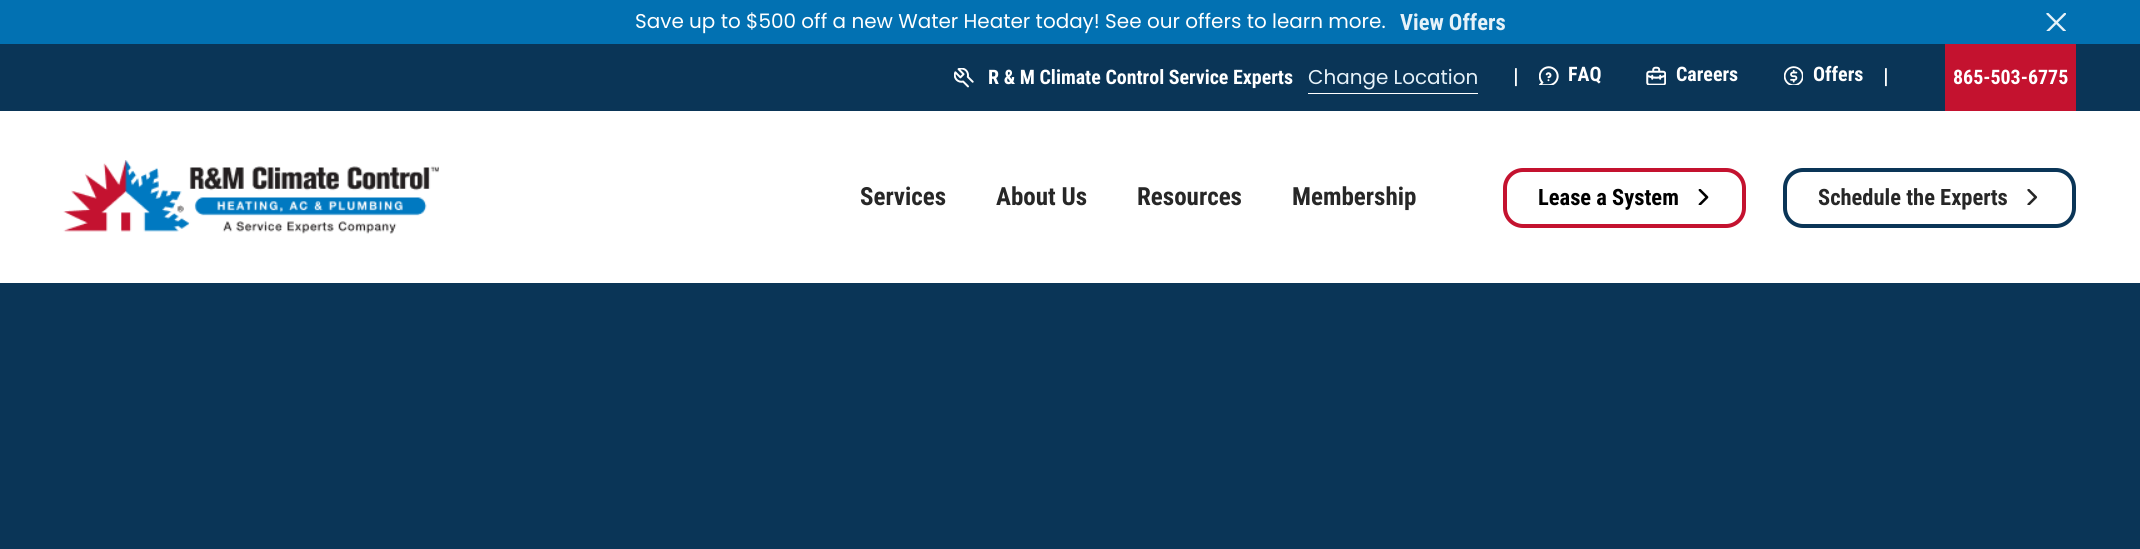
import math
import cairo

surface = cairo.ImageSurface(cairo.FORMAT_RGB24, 2140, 549)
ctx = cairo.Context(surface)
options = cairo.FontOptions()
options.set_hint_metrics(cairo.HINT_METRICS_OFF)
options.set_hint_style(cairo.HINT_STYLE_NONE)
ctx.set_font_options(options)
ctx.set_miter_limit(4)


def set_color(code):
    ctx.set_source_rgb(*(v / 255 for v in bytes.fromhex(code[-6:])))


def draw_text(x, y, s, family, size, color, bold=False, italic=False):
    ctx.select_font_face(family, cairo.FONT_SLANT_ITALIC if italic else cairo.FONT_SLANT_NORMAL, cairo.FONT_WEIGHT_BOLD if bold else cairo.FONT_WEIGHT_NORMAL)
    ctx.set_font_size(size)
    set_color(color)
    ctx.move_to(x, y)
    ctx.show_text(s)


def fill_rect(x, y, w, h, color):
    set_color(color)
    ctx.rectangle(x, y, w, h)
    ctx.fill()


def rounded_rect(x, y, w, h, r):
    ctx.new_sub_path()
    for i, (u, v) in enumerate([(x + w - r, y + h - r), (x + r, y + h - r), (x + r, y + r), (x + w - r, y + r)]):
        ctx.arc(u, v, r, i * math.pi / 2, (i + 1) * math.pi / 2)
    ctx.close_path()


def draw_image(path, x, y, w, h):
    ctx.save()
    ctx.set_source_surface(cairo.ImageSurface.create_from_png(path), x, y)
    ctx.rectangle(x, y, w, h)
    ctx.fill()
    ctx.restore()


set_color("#ffffff")
ctx.paint()
fill_rect(0, 0, 2140, 44, "#0271b2")
draw_text(635, 28, "Save up to $500 off a new Water Heater today! See our offers to learn more.", "Poppins", 19.95, "#ffffff")
draw_text(1400, 30, "View Offers", "Roboto Condensed", 22.5, "#e6f2f9", bold=True)
draw_image("assets/img1.png", 2046, 13, 20, 18)
fill_rect(0, 44, 2140, 67, "#0a3557")
draw_image("assets/img2.png", 954, 68, 20, 20)
draw_text(988, 84, "R & M Climate Control Service Experts", "Roboto Condensed", 19.95, "#ffffff", bold=True)
draw_text(1308, 84, "Change Location", "Poppins", 19.95, "#e6f2f9")
fill_rect(1308, 93, 170, 1, "#ffffff")
draw_text(1513, 84, "|", "Poppins", 19.95, "#ffffff")
draw_image("assets/img3.png", 1539, 66, 20, 19)
draw_text(1568, 81, "FAQ", "Roboto Condensed", 19.95, "#ffffff", bold=True)
draw_image("assets/img4.png", 1646, 66, 20, 19)
draw_text(1676, 81, "Careers", "Roboto Condensed", 19.95, "#ffffff", bold=True)
draw_image("assets/img5.png", 1784, 66, 19, 19)
draw_text(1813, 81, "Offers", "Roboto Condensed", 19.95, "#ffffff", bold=True)
draw_text(1883, 84, "|", "Poppins", 19.95, "#ffffff")
fill_rect(1945, 44, 131, 67, "#c4122f")
draw_text(1953, 84, "865-503-6775", "Roboto Condensed", 19.95, "#ffffff", bold=True)
draw_image("assets/img6.png", 63, 160, 376, 74)
draw_text(860, 205, "Services", "Roboto Condensed", 25, "#272727", bold=True)
draw_text(996, 205, "About Us", "Roboto Condensed", 25, "#272727", bold=True)
draw_text(1137, 205, "Resources", "Roboto Condensed", 25, "#272727", bold=True)
draw_text(1292, 205, "Membership", "Roboto Condensed", 25, "#272727", bold=True)
rounded_rect(1505, 170, 239, 56, 18)
set_color("#c4122f")
ctx.set_line_width(4)
ctx.stroke()
draw_text(1538, 205, "Lease a System", "Roboto Condensed", 22.5, "#000000", bold=True)
draw_image("assets/img7.png", 1698, 189, 11, 16)
rounded_rect(1785, 170, 289, 56, 18)
set_color("#0a3557")
ctx.stroke()
draw_text(1818, 205, "Schedule the Experts", "Roboto Condensed", 22.5, "#272727", bold=True)
draw_image("assets/img8.png", 2027, 189, 11, 16)
fill_rect(0, 283, 2140, 266, "#0a3557")
surface.write_to_png("output.png")
